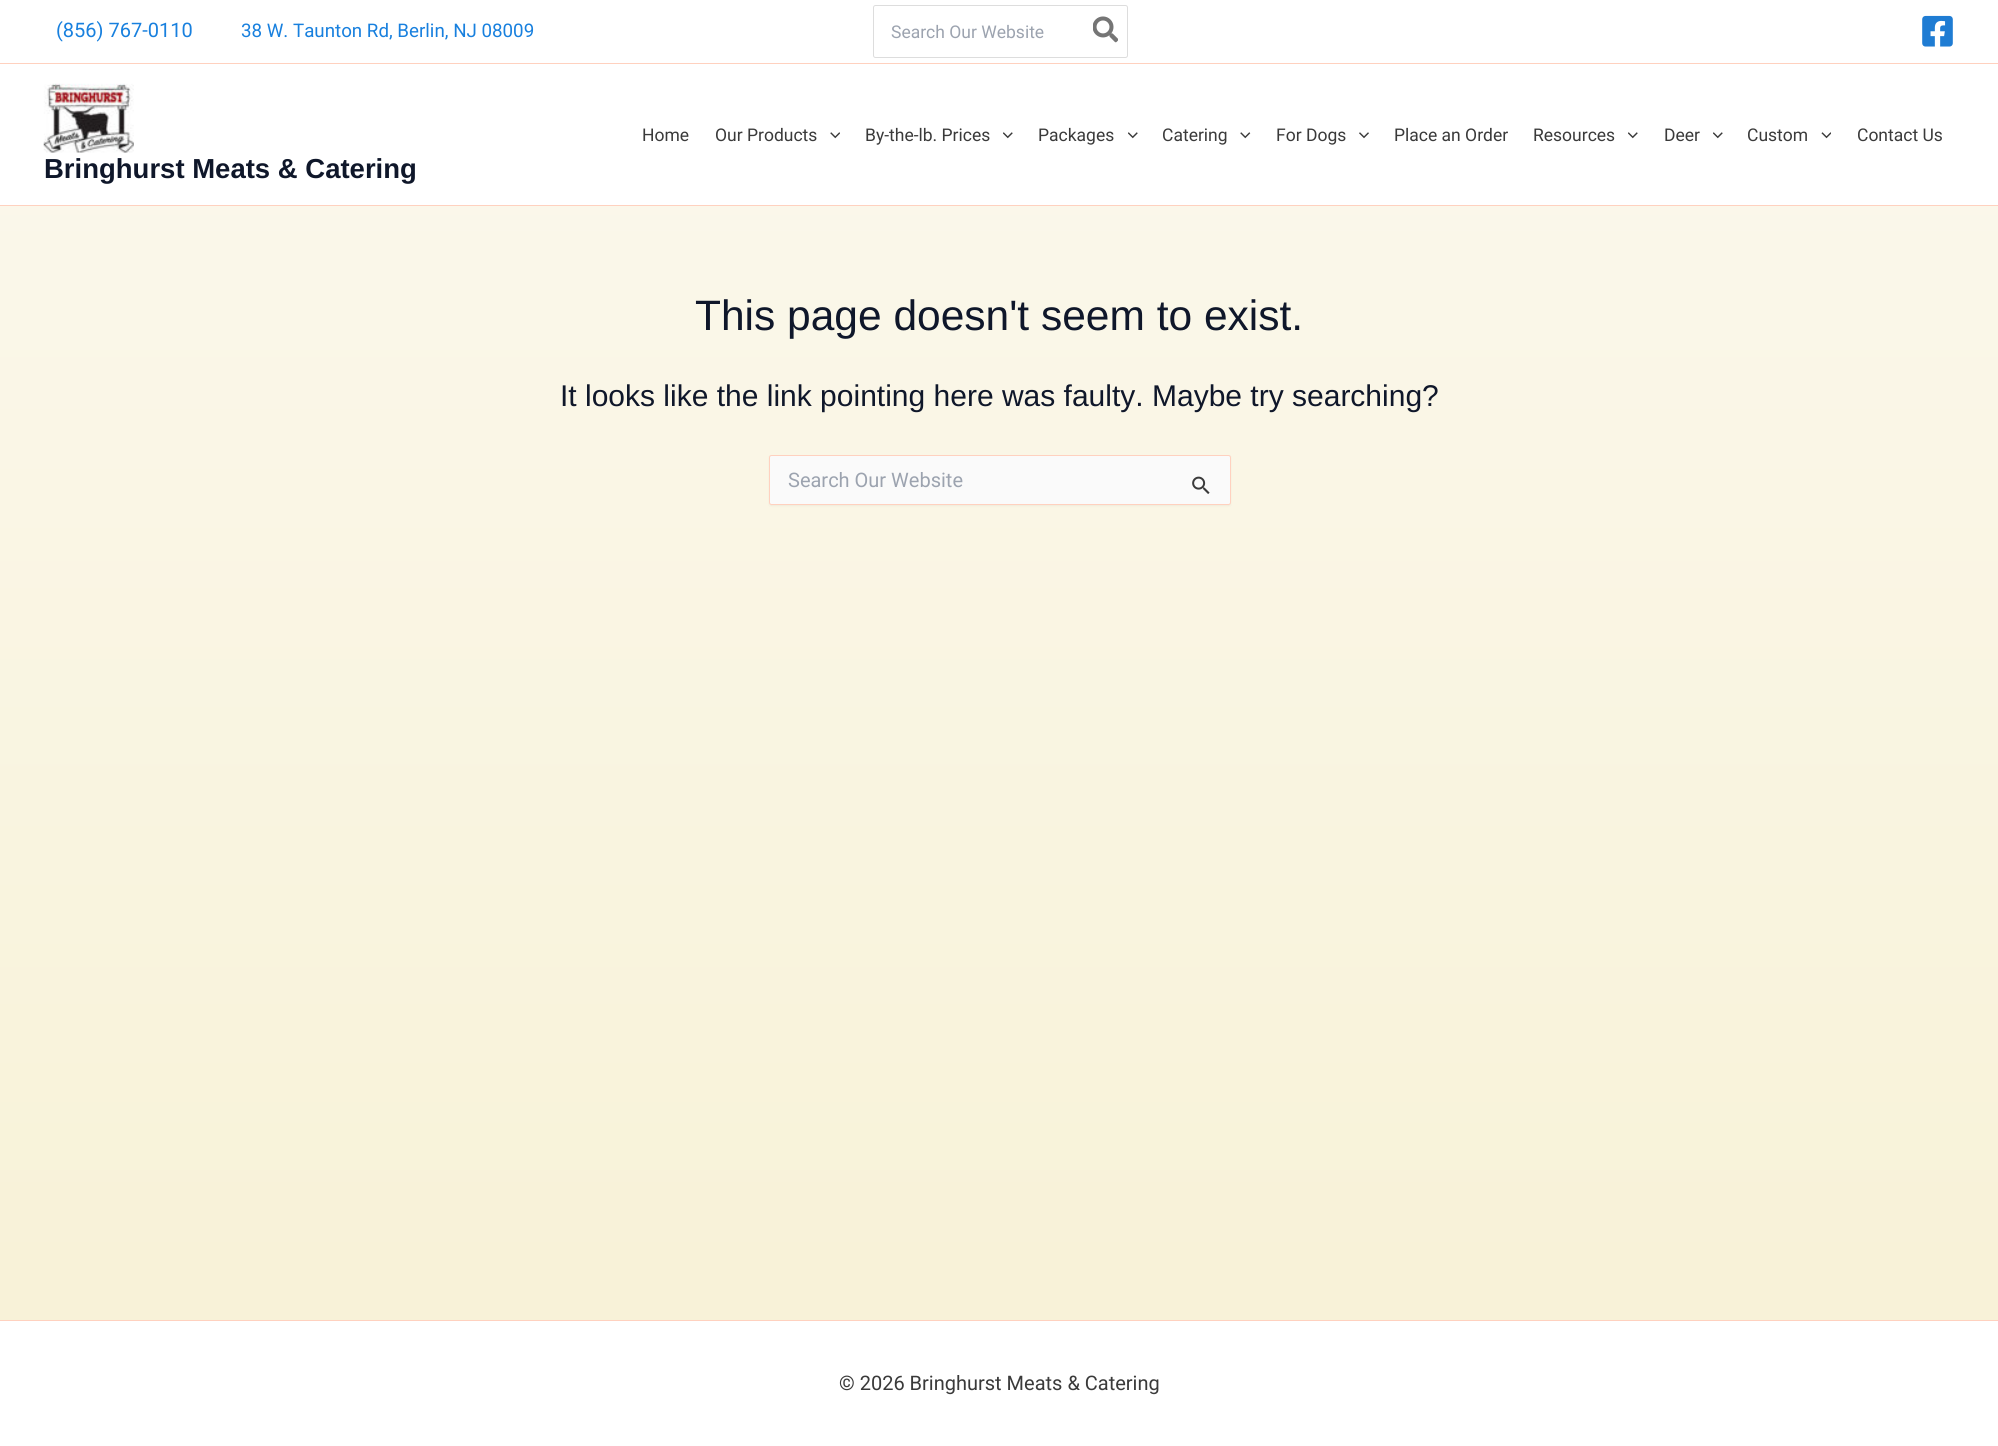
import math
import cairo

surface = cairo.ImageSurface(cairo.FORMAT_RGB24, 1998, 1446)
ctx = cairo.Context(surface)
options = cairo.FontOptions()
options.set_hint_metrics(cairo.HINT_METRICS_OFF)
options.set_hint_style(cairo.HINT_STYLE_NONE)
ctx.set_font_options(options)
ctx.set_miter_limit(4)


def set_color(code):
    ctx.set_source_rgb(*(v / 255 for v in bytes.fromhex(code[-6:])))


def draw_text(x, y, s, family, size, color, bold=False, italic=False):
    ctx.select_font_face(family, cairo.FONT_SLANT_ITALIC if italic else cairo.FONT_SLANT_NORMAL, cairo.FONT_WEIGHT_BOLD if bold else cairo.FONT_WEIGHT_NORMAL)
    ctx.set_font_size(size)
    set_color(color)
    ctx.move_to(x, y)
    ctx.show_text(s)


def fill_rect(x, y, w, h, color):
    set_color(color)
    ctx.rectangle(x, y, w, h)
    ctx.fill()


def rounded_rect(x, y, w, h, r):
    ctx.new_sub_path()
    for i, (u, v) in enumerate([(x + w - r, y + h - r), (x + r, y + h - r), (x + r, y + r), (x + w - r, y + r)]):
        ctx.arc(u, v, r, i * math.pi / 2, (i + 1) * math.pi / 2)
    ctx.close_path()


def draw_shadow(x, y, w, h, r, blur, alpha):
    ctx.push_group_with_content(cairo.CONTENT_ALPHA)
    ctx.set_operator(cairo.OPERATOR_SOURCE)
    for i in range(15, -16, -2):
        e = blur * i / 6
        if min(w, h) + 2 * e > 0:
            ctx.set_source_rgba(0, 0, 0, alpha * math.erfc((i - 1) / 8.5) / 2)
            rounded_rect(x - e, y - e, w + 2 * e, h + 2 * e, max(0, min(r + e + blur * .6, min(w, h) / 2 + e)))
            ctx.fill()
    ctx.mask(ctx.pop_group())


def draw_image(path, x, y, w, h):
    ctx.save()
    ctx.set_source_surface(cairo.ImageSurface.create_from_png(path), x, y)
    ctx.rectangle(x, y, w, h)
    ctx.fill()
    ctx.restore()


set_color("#ffffff")
ctx.paint()
gradient = cairo.LinearGradient(999, 0, 999, 1446)
gradient.add_color_stop_rgba(0.02, 0.984, 0.973, 0.929, 1)
gradient.add_color_stop_rgba(0.88, 0.973, 0.949, 0.847, 1)
ctx.set_source(gradient)
ctx.rectangle(0, 206, 1998, 1114)
ctx.fill()
fill_rect(0, 63, 1998, 1, "#ffd1bf")
draw_text(56, 37, "(856) 767-0110", "Roboto", 20, "#1880de")
draw_text(241, 37, "38 W. Taunton Rd, Berlin, NJ 08009", "Roboto", 18.75, "#1880de")
rounded_rect(873.5, 5.5, 254, 52, 2)
set_color("#dddddd")
ctx.set_line_width(1)
ctx.stroke()
draw_text(891, 38, "Search Our Website", "Roboto", 17.5, "#9ca3af")
draw_image("assets/img1.png", 1093, 16, 25, 27)
draw_image("assets/img2.png", 1922, 15, 31, 32)
fill_rect(0, 205, 1998, 1, "#ffd1bf")
draw_text(642, 141, "Home", "Roboto", 17.5, "#3a3a3a")
draw_text(715, 141, "Our Products", "Roboto", 17.5, "#3a3a3a")
draw_image("assets/img3.png", 830, 132, 10, 7)
draw_text(865, 141, "By-the-lb. Prices", "Roboto", 17.5, "#3a3a3a")
draw_image("assets/img4.png", 1003, 132, 10, 7)
draw_text(1038, 141, "Packages", "Roboto", 17.5, "#3a3a3a")
draw_image("assets/img4.png", 1128, 132, 10, 7)
draw_text(1162, 141, "Catering", "Roboto", 17.5, "#3a3a3a")
draw_image("assets/img5.png", 1240, 132, 11, 7)
draw_text(1276, 141, "For Dogs", "Roboto", 17.5, "#3a3a3a")
draw_image("assets/img6.png", 1359, 132, 10, 7)
draw_text(1394, 141, "Place an Order", "Roboto", 17.5, "#3a3a3a")
draw_text(1533, 141, "Resources", "Roboto", 17.5, "#3a3a3a")
draw_image("assets/img4.png", 1628, 132, 10, 7)
draw_text(1664, 141, "Deer", "Roboto", 17.5, "#3a3a3a")
draw_image("assets/img4.png", 1713, 132, 10, 7)
draw_text(1747, 141, "Custom", "Roboto", 17.5, "#3a3a3a")
draw_image("assets/img7.png", 1821, 132, 10, 7)
draw_text(1857, 141, "Contact Us", "Roboto", 17.5, "#3a3a3a")
draw_image("assets/img8.png", 43, 83, 91, 70)
draw_text(44, 178, "Bringhurst Meats & Catering", "Liberation Sans", 27.5, "#0f172a", bold=True)
draw_text(695, 330, "This page doesn't seem to exist.", "Liberation Sans", 42.5, "#0f172a")
draw_text(560, 406, "It looks like the link pointing here was faulty. Maybe try searching?", "Liberation Sans", 30, "#0f172a")
set_color("#000000")
draw_shadow(769, 456, 462, 50, 2.5, 1, 0.05)
set_color("#fafafa")
rounded_rect(769.5, 455.5, 461, 49, 2)
ctx.fill_preserve()
set_color("#ffd1bf")
ctx.stroke()
draw_text(788, 487, "Search Our Website", "Roboto", 20, "#9ca3af")
draw_image("assets/img9.png", 1192, 476, 18, 18)
fill_rect(0, 1320, 1998, 1, "#ffd1bf")
draw_text(839, 1390, "© 2026 Bringhurst Meats & Catering", "Roboto", 20, "#3a3a3a")
surface.write_to_png("output.png")
